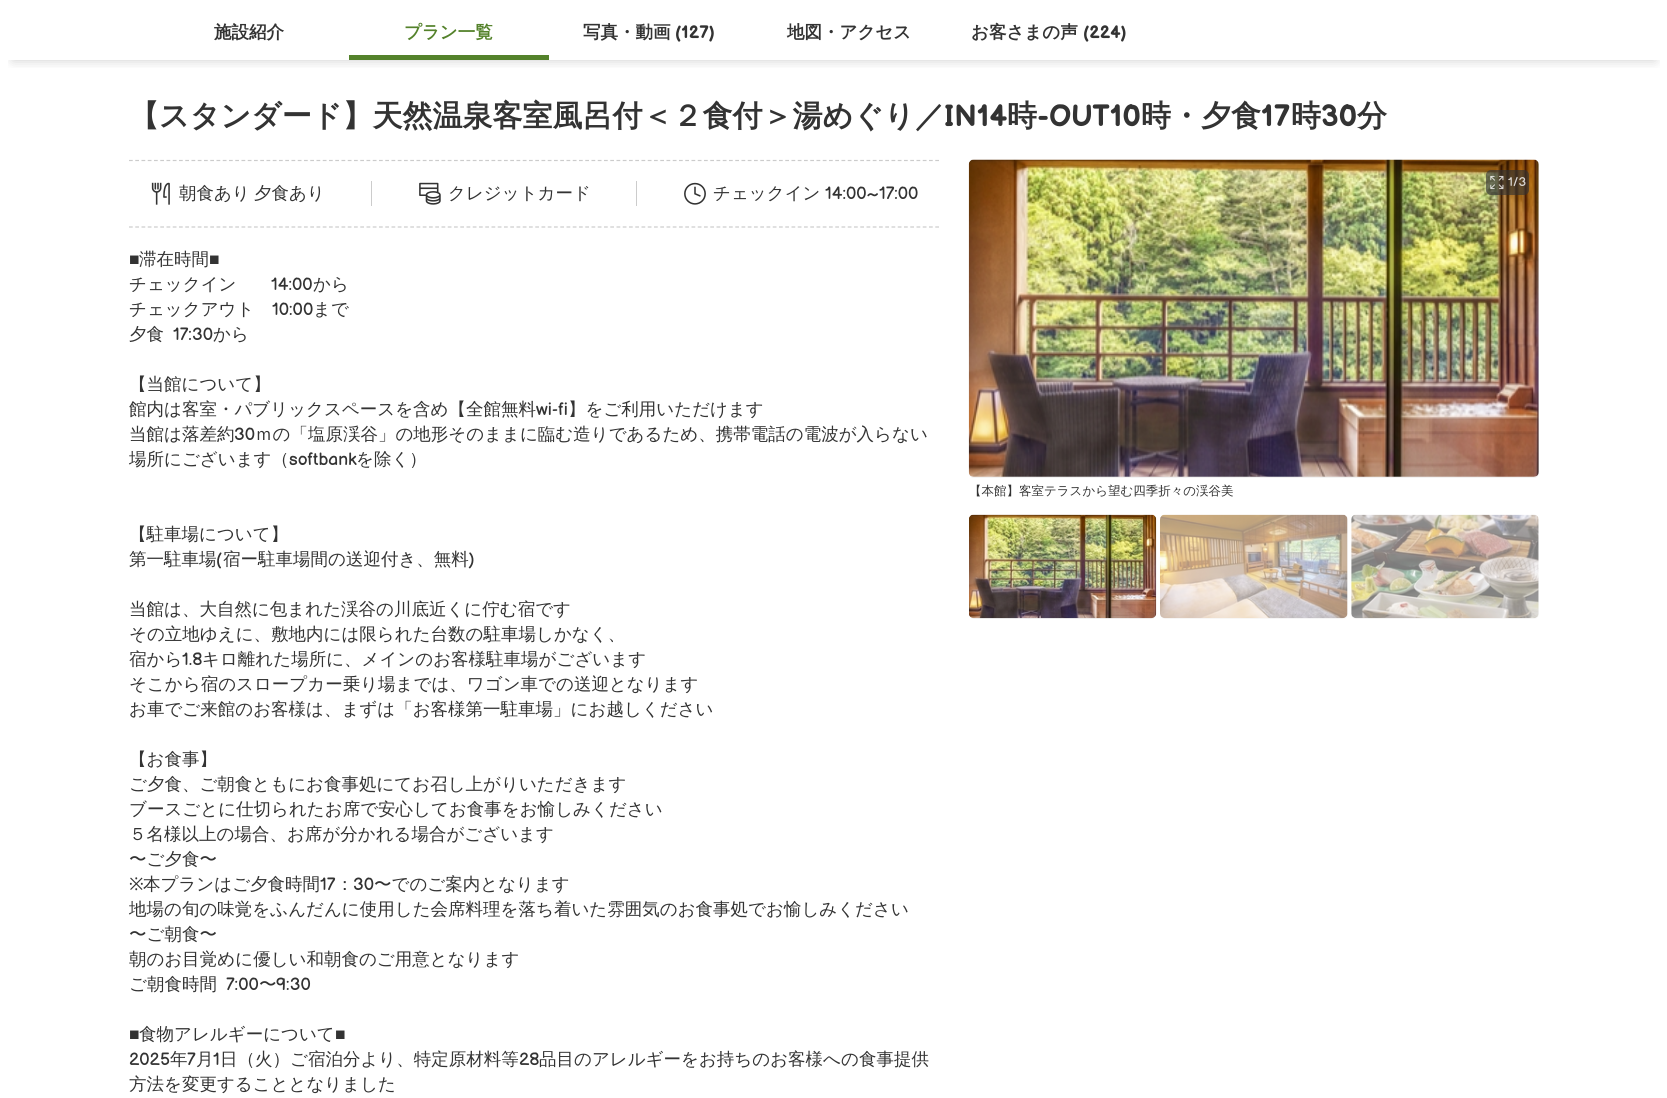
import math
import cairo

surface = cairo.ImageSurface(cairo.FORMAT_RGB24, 1667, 1098)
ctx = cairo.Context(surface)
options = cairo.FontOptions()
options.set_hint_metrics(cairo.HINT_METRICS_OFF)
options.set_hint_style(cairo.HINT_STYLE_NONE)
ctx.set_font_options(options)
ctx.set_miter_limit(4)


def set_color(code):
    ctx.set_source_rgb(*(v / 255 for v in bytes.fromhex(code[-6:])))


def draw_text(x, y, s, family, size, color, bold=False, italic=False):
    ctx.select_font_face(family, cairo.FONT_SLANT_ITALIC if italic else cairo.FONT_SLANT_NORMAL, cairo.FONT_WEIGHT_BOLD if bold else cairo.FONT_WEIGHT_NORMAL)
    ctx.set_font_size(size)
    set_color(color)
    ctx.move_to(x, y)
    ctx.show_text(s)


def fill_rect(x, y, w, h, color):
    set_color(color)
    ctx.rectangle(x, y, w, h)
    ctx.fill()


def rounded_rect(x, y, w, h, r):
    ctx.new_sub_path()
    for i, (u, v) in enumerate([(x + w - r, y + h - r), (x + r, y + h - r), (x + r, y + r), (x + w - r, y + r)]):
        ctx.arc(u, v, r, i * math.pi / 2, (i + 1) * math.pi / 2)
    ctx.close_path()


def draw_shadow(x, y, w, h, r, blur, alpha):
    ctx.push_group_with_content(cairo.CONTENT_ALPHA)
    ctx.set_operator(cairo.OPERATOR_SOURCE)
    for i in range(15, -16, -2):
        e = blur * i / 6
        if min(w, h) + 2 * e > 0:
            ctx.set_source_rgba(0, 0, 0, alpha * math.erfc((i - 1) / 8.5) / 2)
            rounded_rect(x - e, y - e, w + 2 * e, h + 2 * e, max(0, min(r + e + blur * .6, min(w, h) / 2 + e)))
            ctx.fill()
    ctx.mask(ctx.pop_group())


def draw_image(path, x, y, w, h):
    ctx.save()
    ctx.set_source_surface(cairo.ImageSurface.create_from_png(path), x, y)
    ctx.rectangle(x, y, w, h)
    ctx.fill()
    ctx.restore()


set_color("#ffffff")
ctx.paint()
fill_rect(349, 55, 200, 5, "#54822b")
ctx.save()
ctx.rectangle(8, 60, 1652, 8)
ctx.clip()
set_color("#000000")
draw_shadow(13, 5, 1642, 55, 0, 6, 0.2)
ctx.restore()
draw_text(214, 38, "施設紹介", "WenQuanYi Zen Hei", 17.5, "#333333", bold=True)
draw_text(404, 38, "プラン一覧", "WenQuanYi Zen Hei", 17.5, "#54822b", bold=True)
draw_text(583, 38, "写真・動画", "WenQuanYi Zen Hei", 17.5, "#333333", bold=True)
draw_text(675, 38, "(127)", "Balsamiq Sans", 17.5, "#333333", bold=True)
draw_text(787, 38, "地図・アクセス", "WenQuanYi Zen Hei", 17.5, "#333333", bold=True)
draw_text(971, 38, "お客さまの声", "WenQuanYi Zen Hei", 17.5, "#333333", bold=True)
draw_text(1083, 38, "(224)", "Balsamiq Sans", 17.5, "#333333", bold=True)
draw_text(129, 126, "【スタンダード】天然温泉客室風呂付＜２食付＞湯めぐり／", "WenQuanYi Zen Hei", 30, "#333333", bold=True)
draw_text(944, 126, "IN14", "Balsamiq Sans", 30, "#333333", bold=True)
draw_text(1007, 126, "時", "WenQuanYi Zen Hei", 30, "#333333", bold=True)
draw_text(1037, 126, "-OUT10", "Balsamiq Sans", 30, "#333333", bold=True)
draw_text(1141, 126, "時・夕食", "WenQuanYi Zen Hei", 30, "#333333", bold=True)
draw_text(1261, 126, "17", "Balsamiq Sans", 30, "#333333", bold=True)
draw_text(1291, 126, "時", "WenQuanYi Zen Hei", 30, "#333333", bold=True)
draw_text(1321, 126, "30", "Balsamiq Sans", 30, "#333333", bold=True)
draw_text(1357, 126, "分", "WenQuanYi Zen Hei", 30, "#333333", bold=True)
ctx.new_path()
ctx.move_to(129, 160.5)
ctx.line_to(939, 160.5)
set_color("#cccccc")
ctx.set_line_width(1.2)
ctx.set_dash([3.75, 2.5])
ctx.stroke()
ctx.new_path()
ctx.move_to(129, 227)
ctx.line_to(939, 227)
ctx.stroke()
draw_image("assets/img1.png", 151, 182, 19, 23)
draw_text(179, 199, "朝食あり", "WenQuanYi Zen Hei Medium", 17.5, "#333333")
draw_text(254, 199, "夕食あり", "WenQuanYi Zen Hei Medium", 17.5, "#333333")
fill_rect(371, 181, 1, 25, "#cccccc")
draw_image("assets/img2.png", 419, 182, 22, 23)
draw_text(448, 199, "クレジットカード", "WenQuanYi Zen Hei Medium", 17.5, "#333333")
fill_rect(636, 181, 1, 25, "#cccccc")
draw_image("assets/img3.png", 684, 182, 22, 23)
draw_text(713, 199, "チェックイン", "WenQuanYi Zen Hei Medium", 17.5, "#333333")
draw_text(825, 199, "14:00~17:00", "Balsamiq Sans", 17.5, "#333333")
draw_text(129, 265, "■", "Liberation Sans", 17.5, "#333333")
draw_text(139, 265, "滞在時間", "WenQuanYi Zen Hei Medium", 17.5, "#333333")
draw_text(209, 265, "■", "Liberation Sans", 17.5, "#333333")
draw_text(129, 290, "チェックイン", "WenQuanYi Zen Hei Medium", 17.5, "#333333")
draw_text(271, 290, "14:00", "Balsamiq Sans", 17.5, "#333333")
draw_text(313, 290, "から", "WenQuanYi Zen Hei Medium", 17.5, "#333333")
draw_text(129, 315, "チェックアウト", "WenQuanYi Zen Hei Medium", 17.5, "#333333")
draw_text(272, 315, "10:00", "Balsamiq Sans", 17.5, "#333333")
draw_text(313, 315, "まで", "WenQuanYi Zen Hei Medium", 17.5, "#333333")
draw_text(129, 340, "夕食", "WenQuanYi Zen Hei Medium", 17.5, "#333333")
draw_text(173, 340, "17:30", "Balsamiq Sans", 17.5, "#333333")
draw_text(213, 340, "から", "WenQuanYi Zen Hei Medium", 17.5, "#333333")
draw_text(129, 390, "【当館について】", "WenQuanYi Zen Hei Medium", 17.5, "#333333")
draw_text(129, 415, "館内は客室・パブリックスペースを含め【全館無料", "WenQuanYi Zen Hei Medium", 17.5, "#333333")
draw_text(536, 415, "wi-fi", "Balsamiq Sans", 17.5, "#333333")
draw_text(568, 415, "】をご利用いただけます", "WenQuanYi Zen Hei Medium", 17.5, "#333333")
draw_text(129, 440, "当館は落差約", "WenQuanYi Zen Hei Medium", 17.5, "#333333")
draw_text(234, 440, "30", "Balsamiq Sans", 17.5, "#333333")
draw_text(255, 440, "ｍの「塩原渓谷」の地形そのままに臨む造りであるため、携帯電話の電波が入らない", "WenQuanYi Zen Hei Medium", 17.5, "#333333")
draw_text(129, 465, "場所にございます（", "WenQuanYi Zen Hei Medium", 17.5, "#333333")
draw_text(289, 465, "softbank", "Balsamiq Sans", 17.5, "#333333")
draw_text(356, 465, "を除く）", "WenQuanYi Zen Hei Medium", 17.5, "#333333")
draw_text(129, 540, "【駐車場について】", "WenQuanYi Zen Hei Medium", 17.5, "#333333")
draw_text(129, 565, "第一駐車場", "WenQuanYi Zen Hei Medium", 17.5, "#333333")
draw_text(216, 565, "(", "Balsamiq Sans", 17.5, "#333333")
draw_text(223, 565, "宿ー駐車場間の送迎付き、無料", "WenQuanYi Zen Hei Medium", 17.5, "#333333")
draw_text(468, 565, ")", "Balsamiq Sans", 17.5, "#333333")
draw_text(129, 615, "当館は、大自然に包まれた渓谷の川底近くに佇む宿です", "WenQuanYi Zen Hei Medium", 17.5, "#333333")
draw_text(129, 640, "その立地ゆえに、敷地内には限られた台数の駐車場しかなく、", "WenQuanYi Zen Hei Medium", 17.5, "#333333")
draw_text(129, 665, "宿から", "WenQuanYi Zen Hei Medium", 17.5, "#333333")
draw_text(182, 665, "1.8", "Balsamiq Sans", 17.5, "#333333")
draw_text(202, 665, "キロ離れた場所に、メインのお客様駐車場がございます", "WenQuanYi Zen Hei Medium", 17.5, "#333333")
draw_text(129, 690, "そこから宿のスロープカー乗り場までは、ワゴン車での送迎となります", "WenQuanYi Zen Hei Medium", 17.5, "#333333")
draw_text(129, 715, "お車でご来館のお客様は、まずは「お客様第一駐車場」にお越しください", "WenQuanYi Zen Hei Medium", 17.5, "#333333")
draw_text(129, 765, "【お食事】", "WenQuanYi Zen Hei Medium", 17.5, "#333333")
draw_text(129, 790, "ご夕食、ご朝食ともにお食事処にてお召し上がりいただきます", "WenQuanYi Zen Hei Medium", 17.5, "#333333")
draw_text(129, 815, "ブースごとに仕切られたお席で安心してお食事をお愉しみください", "WenQuanYi Zen Hei Medium", 17.5, "#333333")
draw_text(129, 840, "５名様以上の場合、お席が分かれる場合がございます", "WenQuanYi Zen Hei Medium", 17.5, "#333333")
draw_text(129, 865, "〜ご夕食〜", "WenQuanYi Zen Hei Medium", 17.5, "#333333")
draw_text(129, 890, "※", "Noto Sans", 17.5, "#333333")
draw_text(143, 890, "本プランはご夕食時間", "WenQuanYi Zen Hei Medium", 17.5, "#333333")
draw_text(320, 890, "17", "Balsamiq Sans", 17.5, "#333333")
draw_text(336, 890, "：", "WenQuanYi Zen Hei Medium", 17.5, "#333333")
draw_text(353, 890, "30", "Balsamiq Sans", 17.5, "#333333")
draw_text(374, 890, "〜でのご案内となります", "WenQuanYi Zen Hei Medium", 17.5, "#333333")
draw_text(129, 915, "地場の旬の味覚をふんだんに使用した会席料理を落ち着いた雰囲気のお食事処でお愉しみください", "WenQuanYi Zen Hei Medium", 17.5, "#333333")
draw_text(129, 940, "〜ご朝食〜", "WenQuanYi Zen Hei Medium", 17.5, "#333333")
draw_text(129, 965, "朝のお目覚めに優しい和朝食のご用意となります", "WenQuanYi Zen Hei Medium", 17.5, "#333333")
draw_text(129, 990, "ご朝食時間", "WenQuanYi Zen Hei Medium", 17.5, "#333333")
draw_text(226, 990, "7:00", "Balsamiq Sans", 17.5, "#333333")
draw_text(259, 990, "〜", "WenQuanYi Zen Hei Medium", 17.5, "#333333")
draw_text(276, 990, "9:30", "Balsamiq Sans", 17.5, "#333333")
draw_text(129, 1040, "■", "Liberation Sans", 17.5, "#333333")
draw_text(139, 1040, "食物アレルギーについて", "WenQuanYi Zen Hei Medium", 17.5, "#333333")
draw_text(335, 1040, "■", "Liberation Sans", 17.5, "#333333")
draw_text(129, 1065, "2025", "Balsamiq Sans", 17.5, "#333333")
draw_text(170, 1065, "年", "WenQuanYi Zen Hei Medium", 17.5, "#333333")
draw_text(187, 1065, "7", "Balsamiq Sans", 17.5, "#333333")
draw_text(196, 1065, "月", "WenQuanYi Zen Hei Medium", 17.5, "#333333")
draw_text(213, 1065, "1", "Balsamiq Sans", 17.5, "#333333")
draw_text(220, 1065, "日（火）ご宿泊分より、特定原材料等", "WenQuanYi Zen Hei Medium", 17.5, "#333333")
draw_text(519, 1065, "28", "Balsamiq Sans", 17.5, "#333333")
draw_text(539, 1065, "品目のアレルギーをお持ちのお客様への食事提供", "WenQuanYi Zen Hei Medium", 17.5, "#333333")
draw_text(129, 1090, "方法を変更することとなりました", "WenQuanYi Zen Hei Medium", 17.5, "#333333")
set_color("#f3f3f3")
rounded_rect(969, 160, 570, 318, 5)
ctx.fill()
draw_image("assets/img4.png", 968, 159, 571, 318)
ctx.set_source_rgba(0.2, 0.2, 0.2, 0.64)
rounded_rect(1486, 170, 43, 25, 5)
ctx.fill()
draw_image("assets/img5.png", 1490, 175, 14, 15)
draw_text(1508, 186, "1/3", "Balsamiq Sans", 12.5, "#dcd8d4")
draw_text(969, 495, "【本館】客室テラスから望む四季折々の渓谷美", "WenQuanYi Zen Hei Medium", 12.5, "#333333")
set_color("#f3f3f3")
rounded_rect(969, 515, 187, 104, 5)
ctx.fill()
draw_image("assets/img6.png", 969, 514, 188, 105)
set_color("#f9f9f9")
rounded_rect(1160, 515, 188, 104, 5)
ctx.fill()
draw_image("assets/img7.png", 1160, 514, 188, 105)
rounded_rect(1351, 515, 188, 104, 5)
ctx.fill()
draw_image("assets/img8.png", 1351, 514, 188, 105)
surface.write_to_png("output.png")
